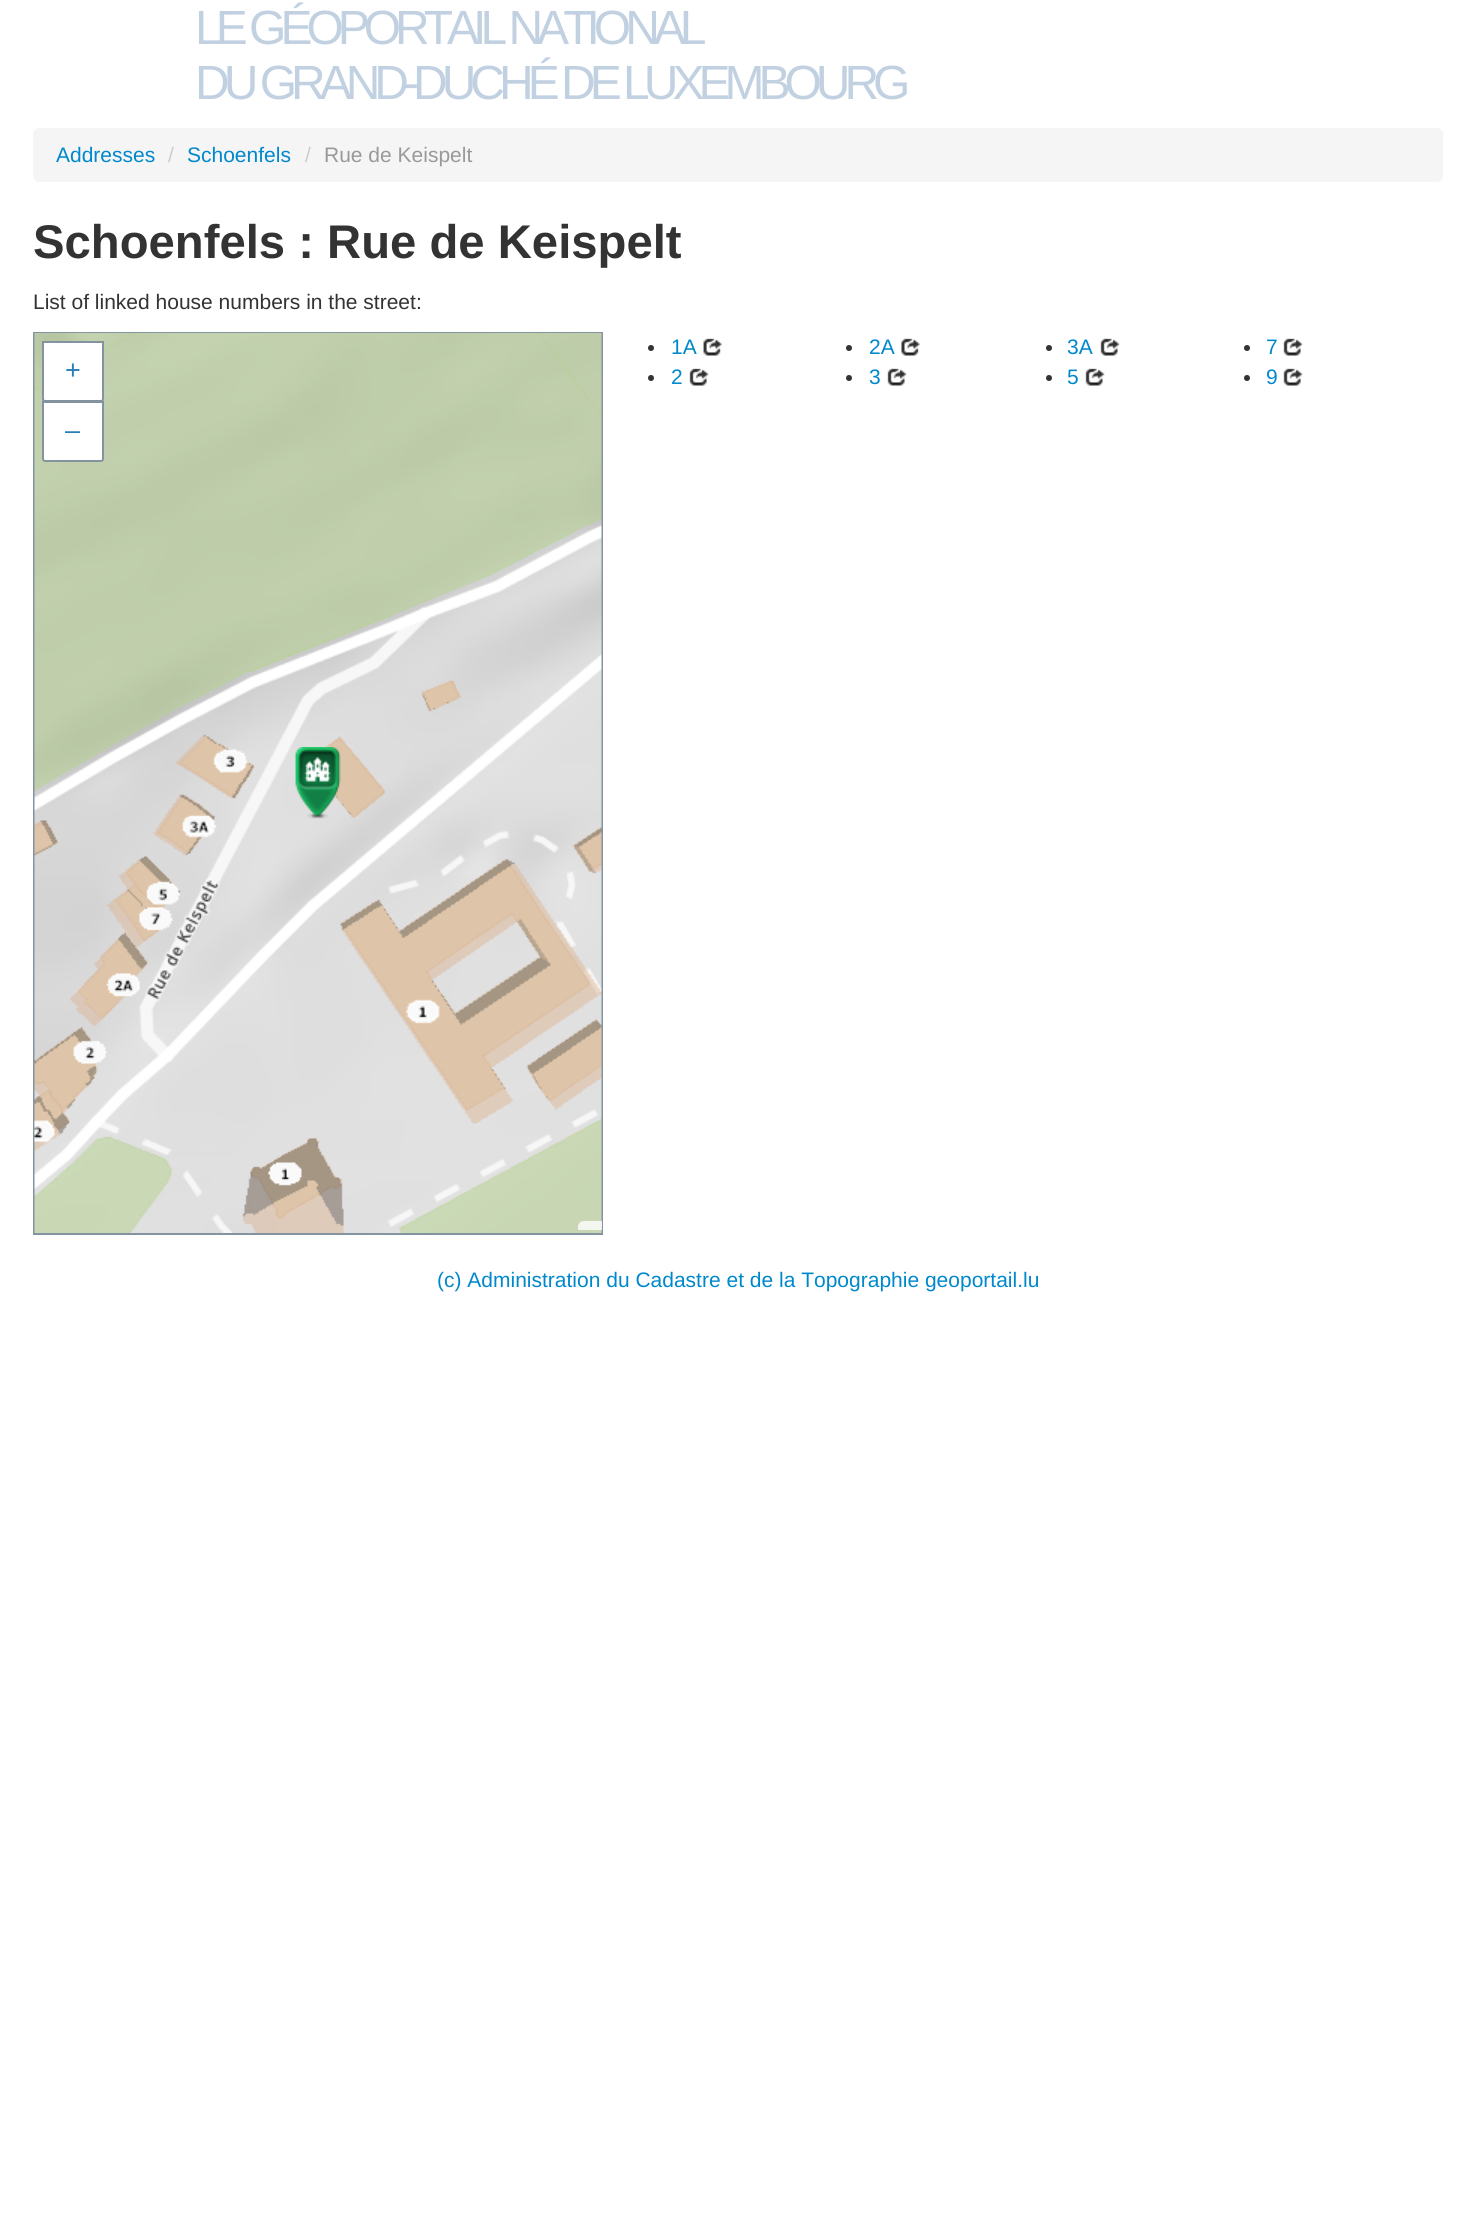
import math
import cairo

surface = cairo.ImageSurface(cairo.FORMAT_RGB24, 1476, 2217)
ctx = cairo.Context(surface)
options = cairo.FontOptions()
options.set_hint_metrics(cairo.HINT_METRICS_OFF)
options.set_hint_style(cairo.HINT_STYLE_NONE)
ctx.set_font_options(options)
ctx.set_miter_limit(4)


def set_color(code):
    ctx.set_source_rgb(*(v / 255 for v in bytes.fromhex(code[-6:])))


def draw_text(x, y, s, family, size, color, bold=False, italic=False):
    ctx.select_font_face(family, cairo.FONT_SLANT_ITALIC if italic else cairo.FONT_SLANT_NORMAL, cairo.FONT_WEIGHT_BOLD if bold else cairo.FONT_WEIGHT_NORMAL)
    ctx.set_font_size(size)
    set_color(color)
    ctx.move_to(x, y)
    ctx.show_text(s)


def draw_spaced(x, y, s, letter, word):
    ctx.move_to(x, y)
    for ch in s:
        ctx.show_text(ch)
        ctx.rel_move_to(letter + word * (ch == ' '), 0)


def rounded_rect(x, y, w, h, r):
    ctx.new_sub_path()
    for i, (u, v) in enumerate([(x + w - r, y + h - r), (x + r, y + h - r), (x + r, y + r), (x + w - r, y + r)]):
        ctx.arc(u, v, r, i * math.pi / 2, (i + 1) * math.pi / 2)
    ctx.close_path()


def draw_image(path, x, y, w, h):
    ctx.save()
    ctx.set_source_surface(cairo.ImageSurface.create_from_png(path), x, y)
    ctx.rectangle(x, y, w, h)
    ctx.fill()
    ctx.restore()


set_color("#ffffff")
ctx.paint()
ctx.select_font_face("Liberation Sans")
ctx.set_font_size(48)
set_color("#c2d1e1")
draw_spaced(195, 44, "LE GÉOPORTAIL NATIONAL", -6, 0)
draw_spaced(195, 99, "DU GRAND-DUCHÉ DE LUXEMBOURG", -6, 0)
set_color("#f5f5f5")
rounded_rect(33, 128, 1410, 54, 6)
ctx.fill()
draw_text(56, 162, "Addresses", "Liberation Sans", 21, "#0088cc")
draw_text(168, 162, "/", "Liberation Sans", 21, "#cccccc")
draw_text(187, 162, "Schoenfels", "Liberation Sans", 21, "#0088cc")
draw_text(305, 162, "/", "Liberation Sans", 21, "#cccccc")
draw_text(324, 162, "Rue de Keispelt", "Liberation Sans", 21, "#999999")
draw_text(33, 258, "Schoenfels : Rue de Keispelt", "Liberation Sans", 47.25, "#333333", bold=True)
draw_text(33, 309, "List of linked house numbers in the street:", "Liberation Sans", 21, "#333333")
ctx.rectangle(34, 333, 568, 901)
set_color("#8394a0")
ctx.stroke()
draw_image("assets/img1.png", 34, 333, 568, 900)
draw_image("assets/img2.png", 34, 748, 406, 438)
set_color("#ffffff")
ctx.new_path()
ctx.move_to(43, 342)
ctx.line_to(103, 342)
ctx.line_to(103, 399)
ctx.curve_to(103, 400, 102, 401, 101, 401)
ctx.line_to(45, 401)
ctx.curve_to(44, 401, 43, 400, 43, 399)
ctx.close_path()
ctx.fill_preserve()
set_color("#8394a0")
ctx.stroke()
draw_text(65, 379, "+", "Liberation Sans", 27, "#2980b9")
set_color("#ffffff")
ctx.new_path()
ctx.move_to(43, 402)
ctx.line_to(103, 402)
ctx.line_to(103, 459)
ctx.curve_to(103, 460, 102, 461, 101, 461)
ctx.line_to(45, 461)
ctx.curve_to(44, 461, 43, 460, 43, 459)
ctx.close_path()
ctx.fill_preserve()
set_color("#8394a0")
ctx.stroke()
draw_text(65, 439, "–", "Liberation Sans", 27, "#2980b9")
draw_image("assets/img3.png", 295, 747, 46, 72)
ctx.set_source_rgba(1, 1, 1, 0.8)
ctx.new_path()
ctx.move_to(584, 1221)
ctx.line_to(602, 1221)
ctx.line_to(602, 1230)
ctx.line_to(578, 1230)
ctx.line_to(578, 1227)
ctx.curve_to(578, 1223.5, 580.5, 1221, 584, 1221)
ctx.close_path()
ctx.fill()
set_color("#333333")
ctx.arc(651, 348, 3, 0, 2 * math.pi)
ctx.fill()
draw_text(671, 354, "1A", "Liberation Sans", 21, "#0088cc")
draw_image("assets/img4.png", 703, 338, 19, 18)
set_color("#333333")
ctx.arc(849, 348, 3, 0, 2 * math.pi)
ctx.fill()
draw_text(869, 354, "2A", "Liberation Sans", 21, "#0088cc")
draw_image("assets/img5.png", 901, 338, 19, 18)
set_color("#333333")
ctx.arc(1049, 348, 3, 0, 2 * math.pi)
ctx.fill()
draw_text(1067, 354, "3A", "Liberation Sans", 21, "#0088cc")
draw_image("assets/img6.png", 1100, 338, 20, 18)
set_color("#333333")
ctx.arc(1247, 348, 3, 0, 2 * math.pi)
ctx.fill()
draw_text(1266, 354, "7", "Liberation Sans", 21, "#0088cc")
draw_image("assets/img7.png", 1283, 338, 20, 18)
set_color("#333333")
ctx.arc(651, 378, 3, 0, 2 * math.pi)
ctx.fill()
draw_text(671, 384, "2", "Liberation Sans", 21, "#0088cc")
draw_image("assets/img7.png", 689, 368, 20, 18)
set_color("#333333")
ctx.arc(849, 378, 3, 0, 2 * math.pi)
ctx.fill()
draw_text(869, 384, "3", "Liberation Sans", 21, "#0088cc")
draw_image("assets/img6.png", 887, 368, 20, 18)
set_color("#333333")
ctx.arc(1049, 378, 3, 0, 2 * math.pi)
ctx.fill()
draw_text(1067, 384, "5", "Liberation Sans", 21, "#0088cc")
draw_image("assets/img6.png", 1085, 368, 20, 18)
set_color("#333333")
ctx.arc(1247, 378, 3, 0, 2 * math.pi)
ctx.fill()
draw_text(1266, 384, "9", "Liberation Sans", 21, "#0088cc")
draw_image("assets/img7.png", 1283, 368, 20, 18)
draw_text(437, 1287, "(c) Administration du Cadastre et de la Topographie geoportail.lu", "Liberation Sans", 21, "#0088cc")
surface.write_to_png("output.png")
